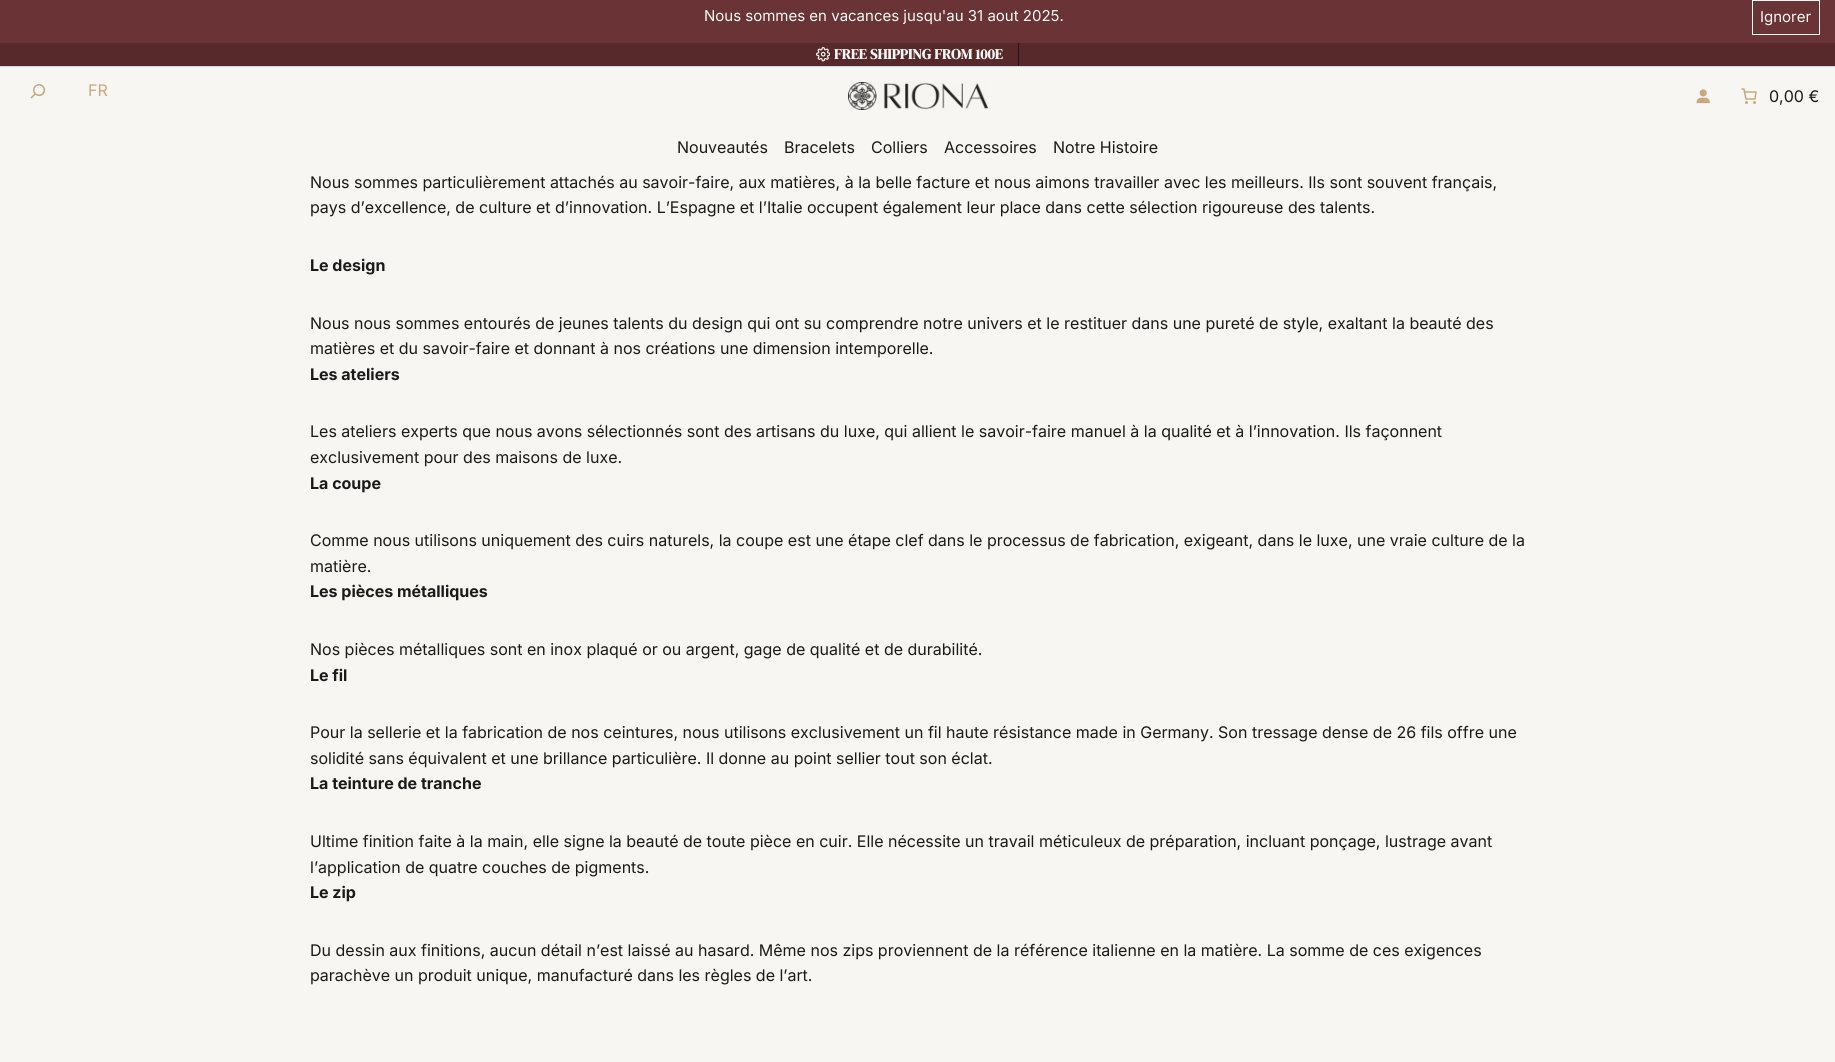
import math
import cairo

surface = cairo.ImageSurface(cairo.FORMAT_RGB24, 1835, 1062)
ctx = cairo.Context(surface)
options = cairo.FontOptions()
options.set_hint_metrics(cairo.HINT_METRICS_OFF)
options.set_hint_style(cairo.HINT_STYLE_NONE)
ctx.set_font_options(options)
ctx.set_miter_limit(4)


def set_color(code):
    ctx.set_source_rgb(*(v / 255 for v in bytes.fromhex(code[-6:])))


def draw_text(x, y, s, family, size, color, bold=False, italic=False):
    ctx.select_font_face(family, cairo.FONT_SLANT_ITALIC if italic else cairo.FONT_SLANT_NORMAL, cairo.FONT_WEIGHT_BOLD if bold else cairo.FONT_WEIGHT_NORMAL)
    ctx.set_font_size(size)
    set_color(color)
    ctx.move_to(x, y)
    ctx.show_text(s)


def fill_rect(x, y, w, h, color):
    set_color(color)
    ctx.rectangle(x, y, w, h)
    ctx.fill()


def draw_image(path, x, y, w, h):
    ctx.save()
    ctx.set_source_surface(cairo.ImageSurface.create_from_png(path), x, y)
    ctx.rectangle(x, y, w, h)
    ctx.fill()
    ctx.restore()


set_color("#f8f6f2")
ctx.paint()
fill_rect(0, 0, 1835, 43, "#6a3436")
draw_text(704, 21, "Nous sommes en vacances jusqu'au 31 aout 2025.", "Inter", 15, "#faf9f7")
ctx.rectangle(1752.5, 0.5, 67, 34)
ctx.set_line_width(1)
ctx.stroke()
draw_text(1760, 22, "Ignorer", "Inter", 15, "#faf9f7")
fill_rect(0, 43, 1835, 23, "#58292b")
fill_rect(0, 66, 1835, 1, "#cbd7eb")
fill_rect(1018, 43, 1, 23, "#1a1a1a")
draw_image("assets/img1.png", 816, 47, 14, 15)
draw_text(834, 59, "FREE SHIPPING FROM 100E", "DM Serif Display", 14.4, "#faf9f7", bold=True)
draw_image("assets/img2.png", 30, 84, 16, 15)
draw_text(88, 96, "FR", "Inter", 16, "#c8a97d")
draw_image("assets/img3.png", 848, 82, 140, 28)
draw_image("assets/img4.png", 1696, 89, 14, 15)
draw_image("assets/img5.png", 1741, 88, 16, 16)
draw_text(1769, 102, "0,00 €", "Inter", 16, "#1a1a1a")
draw_text(677, 153, "Nouveautés", "Inter", 16, "#1a1a1a")
draw_text(784, 153, "Bracelets", "Inter", 16, "#1a1a1a")
draw_text(871, 153, "Colliers", "Inter", 16, "#1a1a1a")
draw_text(944, 153, "Accessoires", "Inter", 16, "#1a1a1a")
draw_text(1053, 153, "Notre Histoire", "Inter", 16, "#1a1a1a")
draw_text(310, 188, "Nous sommes particulièrement attachés au savoir-faire, aux matières, à la belle facture et nous aimons travailler avec les meilleurs. Ils sont souvent français,", "Inter", 16, "#1a1a1a")
draw_text(310, 213, "pays d’excellence, de culture et d’innovation. L’Espagne et l’Italie occupent également leur place dans cette sélection rigoureuse des talents.", "Inter", 16, "#1a1a1a")
draw_text(310, 271, "Le design", "Inter", 16, "#1a1a1a", bold=True)
draw_text(310, 329, "Nous nous sommes entourés de jeunes talents du design qui ont su comprendre notre univers et le restituer dans une pureté de style, exaltant la beauté des", "Inter", 16, "#1a1a1a")
draw_text(310, 354, "matières et du savoir-faire et donnant à nos créations une dimension intemporelle.", "Inter", 16, "#1a1a1a")
draw_text(310, 380, "Les ateliers", "Inter", 16, "#1a1a1a", bold=True)
draw_text(310, 437, "Les ateliers experts que nous avons sélectionnés sont des artisans du luxe, qui allient le savoir-faire manuel à la qualité et à l’innovation. Ils façonnent", "Inter", 16, "#1a1a1a")
draw_text(310, 463, "exclusivement pour des maisons de luxe.", "Inter", 16, "#1a1a1a")
draw_text(310, 489, "La coupe", "Inter", 16, "#1a1a1a", bold=True)
draw_text(310, 546, "Comme nous utilisons uniquement des cuirs naturels, la coupe est une étape clef dans le processus de fabrication, exigeant, dans le luxe, une vraie culture de la", "Inter", 16, "#1a1a1a")
draw_text(310, 572, "matière.", "Inter", 16, "#1a1a1a")
draw_text(310, 597, "Les pièces métalliques", "Inter", 16, "#1a1a1a", bold=True)
draw_text(310, 655, "Nos pièces métalliques sont en inox plaqué or ou argent, gage de qualité et de durabilité.", "Inter", 16, "#1a1a1a")
draw_text(310, 681, "Le fil", "Inter", 16, "#1a1a1a", bold=True)
draw_text(310, 738, "Pour la sellerie et la fabrication de nos ceintures, nous utilisons exclusivement un fil haute résistance made in Germany. Son tressage dense de 26 fils offre une", "Inter", 16, "#1a1a1a")
draw_text(310, 764, "solidité sans équivalent et une brillance particulière. Il donne au point sellier tout son éclat.", "Inter", 16, "#1a1a1a")
draw_text(310, 789, "La teinture de tranche", "Inter", 16, "#1a1a1a", bold=True)
draw_text(310, 847, "Ultime finition faite à la main, elle signe la beauté de toute pièce en cuir. Elle nécessite un travail méticuleux de préparation, incluant ponçage, lustrage avant", "Inter", 16, "#1a1a1a")
draw_text(310, 873, "l’application de quatre couches de pigments.", "Inter", 16, "#1a1a1a")
draw_text(310, 898, "Le zip", "Inter", 16, "#1a1a1a", bold=True)
draw_text(310, 956, "Du dessin aux finitions, aucun détail n’est laissé au hasard. Même nos zips proviennent de la référence italienne en la matière. La somme de ces exigences", "Inter", 16, "#1a1a1a")
draw_text(310, 981, "parachève un produit unique, manufacturé dans les règles de l’art.", "Inter", 16, "#1a1a1a")
surface.write_to_png("output.png")
